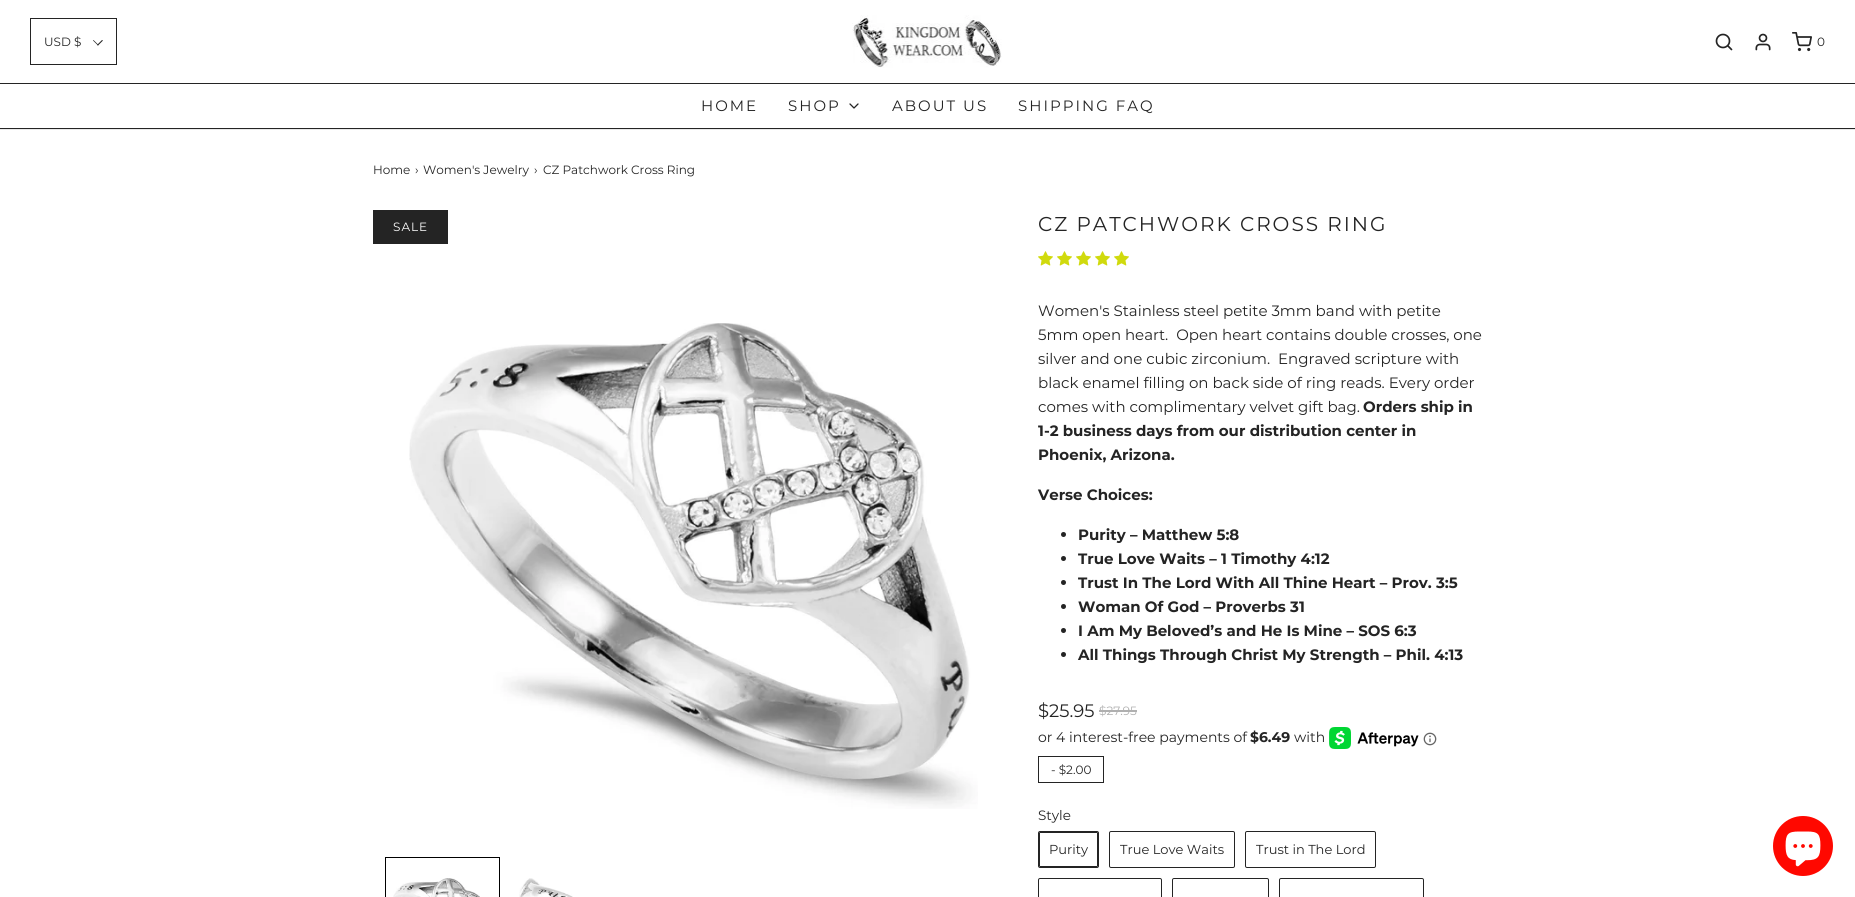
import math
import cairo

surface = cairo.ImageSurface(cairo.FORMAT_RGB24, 1855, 897)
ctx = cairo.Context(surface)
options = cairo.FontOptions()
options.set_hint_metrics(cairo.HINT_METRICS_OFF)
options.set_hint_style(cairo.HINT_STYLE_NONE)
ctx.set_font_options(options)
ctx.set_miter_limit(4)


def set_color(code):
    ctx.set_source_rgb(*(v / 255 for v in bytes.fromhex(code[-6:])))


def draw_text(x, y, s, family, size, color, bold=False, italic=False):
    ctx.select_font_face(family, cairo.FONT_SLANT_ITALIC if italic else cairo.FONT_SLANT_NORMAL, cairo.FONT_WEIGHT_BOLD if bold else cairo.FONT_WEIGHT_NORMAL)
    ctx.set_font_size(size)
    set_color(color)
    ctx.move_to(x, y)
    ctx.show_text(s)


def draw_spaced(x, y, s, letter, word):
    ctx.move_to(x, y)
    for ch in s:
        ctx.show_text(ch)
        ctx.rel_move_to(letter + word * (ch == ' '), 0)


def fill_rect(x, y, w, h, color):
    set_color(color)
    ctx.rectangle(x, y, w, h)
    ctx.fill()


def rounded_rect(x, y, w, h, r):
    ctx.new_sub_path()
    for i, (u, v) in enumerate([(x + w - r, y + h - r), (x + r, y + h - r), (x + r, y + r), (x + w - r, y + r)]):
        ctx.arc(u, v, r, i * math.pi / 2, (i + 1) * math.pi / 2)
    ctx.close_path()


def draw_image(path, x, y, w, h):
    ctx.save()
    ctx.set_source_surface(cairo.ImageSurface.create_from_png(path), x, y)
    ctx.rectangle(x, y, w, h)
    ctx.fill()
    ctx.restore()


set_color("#ffffff")
ctx.paint()
fill_rect(0, 129, 1855, 1, "#e9e9e9")
ctx.rectangle(30.5, 18.5, 86, 46)
set_color("#242424")
ctx.set_line_width(1)
ctx.stroke()
draw_text(44, 46, "USD $", "Montserrat Thin", 12, "#242424")
ctx.new_path()
ctx.move_to(102, 40)
ctx.line_to(103, 40.5)
ctx.line_to(98, 45.5)
ctx.line_to(97, 45)
ctx.close_path()
ctx.fill()
ctx.new_path()
ctx.move_to(93.5, 40)
ctx.line_to(98.5, 45)
ctx.line_to(98, 45.5)
ctx.line_to(93, 40.5)
ctx.close_path()
ctx.fill()
draw_image("assets/img1.png", 852, 15, 150, 53)
ctx.arc(1723, 41, 6.5, 0, 2 * math.pi)
ctx.set_line_width(1.7)
ctx.stroke()
ctx.new_path()
ctx.move_to(1731.5, 49.5)
ctx.line_to(1728, 46)
ctx.set_line_cap(cairo.LINE_CAP_ROUND)
ctx.set_line_join(cairo.LINE_JOIN_ROUND)
ctx.stroke()
draw_image("assets/img2.png", 1755, 33, 16, 18)
draw_image("assets/img3.png", 1792, 32, 20, 20)
draw_text(1817, 46, "0", "Montserrat Thin", 12, "#242424")
fill_rect(0, 83, 1855, 1, "#242424")
fill_rect(0, 128, 1855, 1, "#242424")
ctx.set_font_size(15)
draw_spaced(701, 111, "HOME", 2, 0)
draw_spaced(788, 111, "SHOP", 2, 0)
ctx.new_path()
ctx.move_to(850, 104)
ctx.line_to(854, 108)
ctx.line_to(858, 104)
ctx.set_line_width(1.3)
ctx.stroke()
draw_spaced(892, 111, "ABOUT US", 2, 0)
draw_spaced(1018, 111, "SHIPPING FAQ", 2, 0)
draw_text(373, 174, "Home", "Montserrat Thin", 12, "#242424")
draw_text(415, 174, "›", "Montserrat Thin", 12, "#242424")
draw_text(423, 174, "Women's Jewelry", "Montserrat Thin", 12, "#242424")
draw_text(534, 174, "›", "Montserrat Thin", 12, "#242424")
draw_text(543, 174, "CZ Patchwork Cross Ring", "Montserrat Thin", 12, "#242424")
fill_rect(373, 210, 75, 34, "#242424")
set_color("#ffffff")
draw_spaced(393, 231, "SALE", 1, 0)
draw_image("assets/img4.png", 409, 323, 569, 486)
ctx.rectangle(385.5, 857.5, 114, 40)
set_color("#000000")
ctx.set_line_width(1)
ctx.set_line_cap(cairo.LINE_CAP_BUTT)
ctx.set_line_join(cairo.LINE_JOIN_MITER)
ctx.stroke()
draw_image("assets/img5.png", 393, 878, 87, 19)
draw_image("assets/img6.png", 519, 878, 54, 19)
ctx.set_font_size(20)
set_color("#242424")
draw_spaced(1038, 231, "CZ PATCHWORK CROSS RING", 2, 0)
draw_image("assets/img7.png", 1038, 251, 15, 15)
draw_image("assets/img7.png", 1057, 251, 15, 15)
draw_image("assets/img7.png", 1076, 251, 15, 15)
draw_image("assets/img7.png", 1095, 251, 15, 15)
draw_image("assets/img7.png", 1114, 251, 15, 15)
draw_text(1038, 316, "Women's Stainless steel petite 3mm band with petite", "Montserrat Thin", 15, "#242424")
draw_text(1038, 340, "5mm open heart.  Open heart contains double crosses, one", "Montserrat Thin", 15, "#242424")
draw_text(1038, 364, "silver and one cubic zirconium.  Engraved scripture with", "Montserrat Thin", 15, "#242424")
draw_text(1038, 388, "black enamel filling on back side of ring reads. Every order", "Montserrat Thin", 15, "#242424")
draw_text(1038, 412, "comes with complimentary velvet gift bag.", "Montserrat Thin", 15, "#242424")
draw_text(1363, 412, "Orders ship in", "Montserrat", 15, "#242424", bold=True)
draw_text(1038, 436, "1-2 business days from our distribution center in", "Montserrat", 15, "#242424", bold=True)
draw_text(1038, 460, "Phoenix, Arizona.", "Montserrat", 15, "#242424", bold=True)
draw_text(1038, 500, "Verse Choices:", "Montserrat", 15, "#242424", bold=True)
ctx.new_path()
ctx.arc(1063.5, 534.5, 2.5, 0, 2 * math.pi)
ctx.fill()
draw_text(1078, 540, "Purity – Matthew 5:8", "Montserrat", 15, "#242424", bold=True)
ctx.new_path()
ctx.arc(1063.5, 558.5, 2.5, 0, 2 * math.pi)
ctx.fill()
draw_text(1078, 564, "True Love Waits – 1 Timothy 4:12", "Montserrat", 15, "#242424", bold=True)
ctx.new_path()
ctx.arc(1063.5, 582.5, 2.5, 0, 2 * math.pi)
ctx.fill()
draw_text(1078, 588, "Trust In The Lord With All Thine Heart – Prov. 3:5", "Montserrat", 15, "#242424", bold=True)
ctx.new_path()
ctx.arc(1063.5, 606.5, 2.5, 0, 2 * math.pi)
ctx.fill()
draw_text(1078, 612, "Woman Of God – Proverbs 31", "Montserrat", 15, "#242424", bold=True)
ctx.new_path()
ctx.arc(1063.5, 630.5, 2.5, 0, 2 * math.pi)
ctx.fill()
draw_text(1078, 636, "I Am My Beloved’s and He Is Mine – SOS 6:3", "Montserrat", 15, "#242424", bold=True)
ctx.new_path()
ctx.arc(1063.5, 654.5, 2.5, 0, 2 * math.pi)
ctx.fill()
draw_text(1078, 660, "All Things Through Christ My Strength – Phil. 4:13", "Montserrat", 15, "#242424", bold=True)
draw_text(1038, 717, "$25.95", "Montserrat Thin", 18, "#242424")
draw_text(1099, 715, "$27.95", "Montserrat Thin", 12, "#b0b0b0")
fill_rect(1099, 710, 38, 2, "#b0b0b0")
draw_text(1038, 742, "or 4 interest-free payments of", "Montserrat Thin", 14, "#242424")
draw_text(1250, 742, "$6.49", "Montserrat", 14, "#242424", bold=True)
draw_text(1294, 742, "with", "Montserrat Thin", 14, "#242424")
draw_image("assets/img8.png", 1329, 727, 90, 22)
draw_image("assets/img9.png", 1423, 732, 14, 14)
ctx.rectangle(1038.5, 756.5, 65, 26)
ctx.stroke()
draw_text(1051, 774, "- $2.00", "Montserrat Thin", 12, "#242424")
draw_text(1038, 820, "Style", "Montserrat Thin", 13.5, "#242424")
rounded_rect(1039.5, 832.5, 58, 34, 0.5)
ctx.stroke()
rounded_rect(1038.5, 831.5, 60, 36, 1.5)
ctx.stroke()
draw_text(1049, 854, "Purity", "Montserrat Thin", 13, "#242424")
rounded_rect(1109.5, 831.5, 125, 36, 1.5)
ctx.stroke()
draw_text(1120, 854, "True Love Waits", "Montserrat Thin", 13, "#242424")
rounded_rect(1245.5, 831.5, 130, 36, 1.5)
ctx.stroke()
draw_text(1256, 854, "Trust in The Lord", "Montserrat Thin", 13, "#242424")
rounded_rect(1038.5, 878.5, 123, 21, 1.5)
ctx.stroke()
rounded_rect(1172.5, 878.5, 96, 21, 1.5)
ctx.stroke()
rounded_rect(1279.5, 878.5, 144, 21, 1.5)
ctx.stroke()
set_color("#ff0800")
ctx.arc(1803, 846, 30, 0, 2 * math.pi)
ctx.fill()
draw_image("assets/img10.png", 1785, 831, 36, 36)
surface.write_to_png("output.png")
